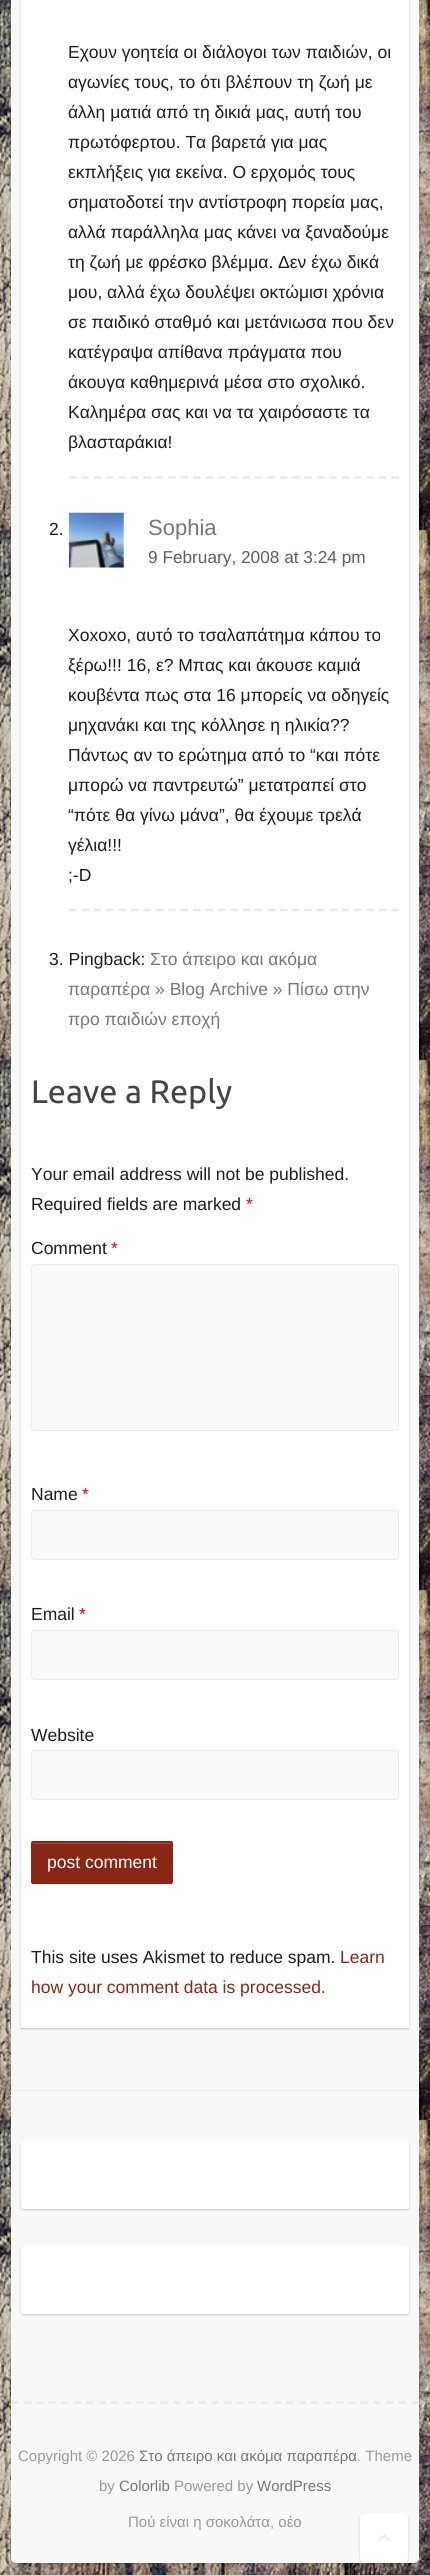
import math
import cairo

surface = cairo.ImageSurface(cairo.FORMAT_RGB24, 430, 2575)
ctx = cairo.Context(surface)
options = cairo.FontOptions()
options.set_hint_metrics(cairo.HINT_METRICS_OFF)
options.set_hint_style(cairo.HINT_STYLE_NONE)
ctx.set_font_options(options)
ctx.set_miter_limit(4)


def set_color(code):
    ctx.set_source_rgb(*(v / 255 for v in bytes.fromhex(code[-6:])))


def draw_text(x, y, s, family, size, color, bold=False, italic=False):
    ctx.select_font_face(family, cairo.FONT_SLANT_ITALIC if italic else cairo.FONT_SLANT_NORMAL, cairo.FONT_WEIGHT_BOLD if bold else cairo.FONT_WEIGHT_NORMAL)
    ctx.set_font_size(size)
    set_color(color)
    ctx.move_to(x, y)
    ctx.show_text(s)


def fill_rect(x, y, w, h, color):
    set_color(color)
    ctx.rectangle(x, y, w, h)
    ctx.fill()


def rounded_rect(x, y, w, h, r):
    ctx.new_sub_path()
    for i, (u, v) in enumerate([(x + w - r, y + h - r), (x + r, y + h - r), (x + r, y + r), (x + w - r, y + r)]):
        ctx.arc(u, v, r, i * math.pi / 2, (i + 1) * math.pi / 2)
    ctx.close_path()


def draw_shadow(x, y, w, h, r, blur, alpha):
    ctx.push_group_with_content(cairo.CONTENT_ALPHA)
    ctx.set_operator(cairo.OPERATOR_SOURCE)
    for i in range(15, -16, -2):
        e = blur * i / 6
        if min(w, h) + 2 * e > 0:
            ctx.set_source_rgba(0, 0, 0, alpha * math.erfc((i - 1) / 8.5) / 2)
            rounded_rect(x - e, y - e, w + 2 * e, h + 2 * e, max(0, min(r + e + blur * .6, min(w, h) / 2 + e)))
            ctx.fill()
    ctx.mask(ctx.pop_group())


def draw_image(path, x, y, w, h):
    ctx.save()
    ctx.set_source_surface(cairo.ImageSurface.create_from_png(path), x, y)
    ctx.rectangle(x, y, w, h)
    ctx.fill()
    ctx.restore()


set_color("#ffffff")
ctx.paint()
draw_image("assets/img1.png", 0, 0, 430, 2575)
set_color("#000000")
draw_shadow(11, -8, 408, 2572, 5, 1, 0.2)
set_color("#f8f8f8")
rounded_rect(11, -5, 408, 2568, 5)
ctx.fill()
set_color("#000000")
draw_shadow(21, -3, 388, 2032, 0, 1, 0.2)
fill_rect(21, 0, 388, 2028, "#ffffff")
ctx.new_path()
ctx.move_to(69, 477.5)
ctx.line_to(399, 477.5)
set_color("#eaeaea")
ctx.set_line_width(2.5)
ctx.set_dash([7.5, 4.9])
ctx.stroke()
draw_text(68, 58, "Εχουν γοητεία οι διάλογοι των παιδιών, οι", "Liberation Sans", 17.5, "#1d1d1d")
draw_text(68, 88, "αγωνίες τους, το ότι βλέπουν τη ζωή με", "Liberation Sans", 17.5, "#1d1d1d")
draw_text(68, 118, "άλλη ματιά από τη δικιά μας, αυτή του", "Liberation Sans", 17.5, "#1d1d1d")
draw_text(68, 148, "πρωτόφερτου. Τα βαρετά για μας", "Liberation Sans", 17.5, "#1d1d1d")
draw_text(68, 178, "εκπλήξεις για εκείνα. Ο ερχομός τους", "Liberation Sans", 17.5, "#1d1d1d")
draw_text(68, 208, "σηματοδοτεί την αντίστροφη πορεία μας,", "Liberation Sans", 17.5, "#1d1d1d")
draw_text(68, 238, "αλλά παράλληλα μας κάνει να ξαναδούμε", "Liberation Sans", 17.5, "#1d1d1d")
draw_text(68, 268, "τη ζωή με φρέσκο βλέμμα. Δεν έχω δικά", "Liberation Sans", 17.5, "#1d1d1d")
draw_text(68, 298, "μου, αλλά έχω δουλέψει οκτώμισι χρόνια", "Liberation Sans", 17.5, "#1d1d1d")
draw_text(68, 328, "σε παιδικό σταθμό και μετάνιωσα που δεν", "Liberation Sans", 17.5, "#1d1d1d")
draw_text(68, 358, "κατέγραψα απίθανα πράγματα που", "Liberation Sans", 17.5, "#1d1d1d")
draw_text(68, 388, "άκουγα καθημερινά μέσα στο σχολικό.", "Liberation Sans", 17.5, "#1d1d1d")
draw_text(68, 418, "Καλημέρα σας και να τα χαιρόσαστε τα", "Liberation Sans", 17.5, "#1d1d1d")
draw_text(68, 448, "βλασταράκια!", "Liberation Sans", 17.5, "#1d1d1d")
draw_text(49, 535, "2.", "Liberation Sans", 17.5, "#1d1d1d")
ctx.new_path()
ctx.move_to(69, 910)
ctx.line_to(399, 910)
set_color("#eaeaea")
ctx.stroke()
draw_image("assets/img2.png", 68, 512, 56, 56)
draw_text(148, 535, "Sophia", "Liberation Sans", 22, "#777777")
draw_text(148, 563, "9 February, 2008 at 3:24 pm", "Liberation Sans", 17.25, "#5e5e5e")
draw_text(68, 641, "Xoxoxo, αυτό το τσαλαπάτημα κάπου το", "Liberation Sans", 17.5, "#1d1d1d")
draw_text(68, 671, "ξέρω!!! 16, ε? Μπας και άκουσε καμιά", "Liberation Sans", 17.5, "#1d1d1d")
draw_text(68, 701, "κουβέντα πως στα 16 μπορείς να οδηγείς", "Liberation Sans", 17.5, "#1d1d1d")
draw_text(68, 731, "μηχανάκι και της κόλλησε η ηλικία??", "Liberation Sans", 17.5, "#1d1d1d")
draw_text(68, 761, "Πάντως αν το ερώτημα από το “και πότε", "Liberation Sans", 17.5, "#1d1d1d")
draw_text(68, 791, "μπορώ να παντρευτώ” μετατραπεί στο", "Liberation Sans", 17.5, "#1d1d1d")
draw_text(68, 821, "“πότε θα γίνω μάνα”, θα έχουμε τρελά", "Liberation Sans", 17.5, "#1d1d1d")
draw_text(68, 851, "γέλια!!!", "Liberation Sans", 17.5, "#1d1d1d")
draw_text(68, 881, ";-D", "Liberation Sans", 17.5, "#1d1d1d")
draw_text(150, 965, "Στο άπειρο και ακόμα", "Liberation Sans", 17.5, "#777777")
draw_text(68, 995, "παραπέρα » Blog Archive » Πίσω στην", "Liberation Sans", 17.5, "#777777")
draw_text(68, 1025, "προ παιδιών εποχή", "Liberation Sans", 17.5, "#777777")
draw_text(49, 965, "3. Pingback:", "Liberation Sans", 17.5, "#1d1d1d")
draw_text(31, 1103, "Leave a Reply", "Ubuntu", 32.5, "#444444")
draw_text(31, 1180, "Your email address will not be published.", "Liberation Sans", 17.5, "#1d1d1d")
draw_text(31, 1210, "Required fields are marked", "Liberation Sans", 17.5, "#1d1d1d")
draw_text(246, 1210, "*", "Liberation Sans", 17.5, "#ff0000")
draw_text(31, 1254, "Comment", "Liberation Sans", 17.5, "#1d1d1d")
draw_text(111, 1254, "*", "Liberation Sans", 17.5, "#ff0000")
set_color("#f9f9f9")
rounded_rect(31.5, 1264.5, 367, 166, 3.5)
ctx.fill_preserve()
set_color("#eaeaea")
ctx.set_line_width(1)
ctx.set_dash([])
ctx.stroke()
draw_text(31, 1500, "Name", "Liberation Sans", 17.5, "#1d1d1d")
draw_text(82, 1500, "*", "Liberation Sans", 17.5, "#ff0000")
set_color("#f9f9f9")
rounded_rect(31.5, 1510.5, 367, 49, 3.5)
ctx.fill_preserve()
set_color("#eaeaea")
ctx.stroke()
draw_text(31, 1620, "Email", "Liberation Sans", 17.5, "#1d1d1d")
draw_text(79, 1620, "*", "Liberation Sans", 17.5, "#ff0000")
set_color("#f9f9f9")
rounded_rect(31.5, 1630.5, 367, 49, 3.5)
ctx.fill_preserve()
set_color("#eaeaea")
ctx.stroke()
draw_text(31, 1741, "Website", "Liberation Sans", 17.5, "#1d1d1d")
set_color("#f9f9f9")
rounded_rect(31.5, 1750.5, 367, 49, 3.5)
ctx.fill_preserve()
set_color("#eaeaea")
ctx.stroke()
set_color("#882716")
rounded_rect(31, 1841, 142, 43, 2.5)
ctx.fill()
set_color("#a05245")
ctx.new_path()
ctx.move_to(34, 1844)
ctx.line_to(170, 1844)
ctx.curve_to(171, 1844, 171, 1844, 171, 1845)
ctx.curve_to(171, 1844, 171, 1843, 170, 1843)
ctx.line_to(34, 1843)
ctx.line_to(33, 1844)
ctx.close_path()
ctx.fill()
rounded_rect(31.5, 1841.5, 141, 42, 2)
set_color("#882716")
ctx.stroke()
draw_text(47, 1868, "post comment", "Liberation Sans", 17.5, "#ffffff")
draw_text(31, 1963, "This site uses Akismet to reduce spam.", "Liberation Sans", 17.5, "#1d1d1d")
draw_text(340, 1963, "Learn", "Liberation Sans", 17.5, "#882716")
draw_text(31, 1993, "how your comment data is processed.", "Liberation Sans", 17.5, "#882716")
fill_rect(11, 2090, 408, 1, "#eaeaea")
set_color("#000000")
draw_shadow(21, 2143, 388, 67, 2.5, 1, 0.2)
set_color("#ffffff")
rounded_rect(21, 2141, 388, 68, 2.5)
ctx.fill()
set_color("#000000")
draw_shadow(21, 2248, 388, 67, 2.5, 1, 0.2)
set_color("#ffffff")
rounded_rect(21, 2246, 388, 68, 2.5)
ctx.fill()
ctx.new_path()
ctx.move_to(11, 2402.5)
ctx.line_to(419, 2402.5)
set_color("#eaeaea")
ctx.set_line_width(2.5)
ctx.set_dash([7.5, 5])
ctx.stroke()
draw_text(18, 2461, "Copyright © 2026", "Liberation Sans", 15, "#999999")
draw_text(139, 2461, "Στο άπειρο και ακόμα παραπέρα", "Liberation Sans", 15, "#777777")
draw_text(357, 2461, ". Theme", "Liberation Sans", 15, "#999999")
draw_text(99, 2491, "by", "Liberation Sans", 15, "#999999")
draw_text(119, 2491, "Colorlib", "Liberation Sans", 15, "#777777")
draw_text(174, 2491, "Powered by", "Liberation Sans", 15, "#999999")
draw_text(257, 2491, "WordPress", "Liberation Sans", 15, "#777777")
draw_text(128, 2527, "Πού είναι η σοκολάτα, οέο", "Liberation Sans", 15, "#999999")
set_color("#000000")
draw_shadow(360, 2514, 48, 50, 5, 1, 0.2)
set_color("#ffffff")
rounded_rect(360, 2513, 48, 50, 5)
ctx.fill()
draw_image("assets/img3.png", 378, 2534, 13, 8)
surface.write_to_png("output.png")
